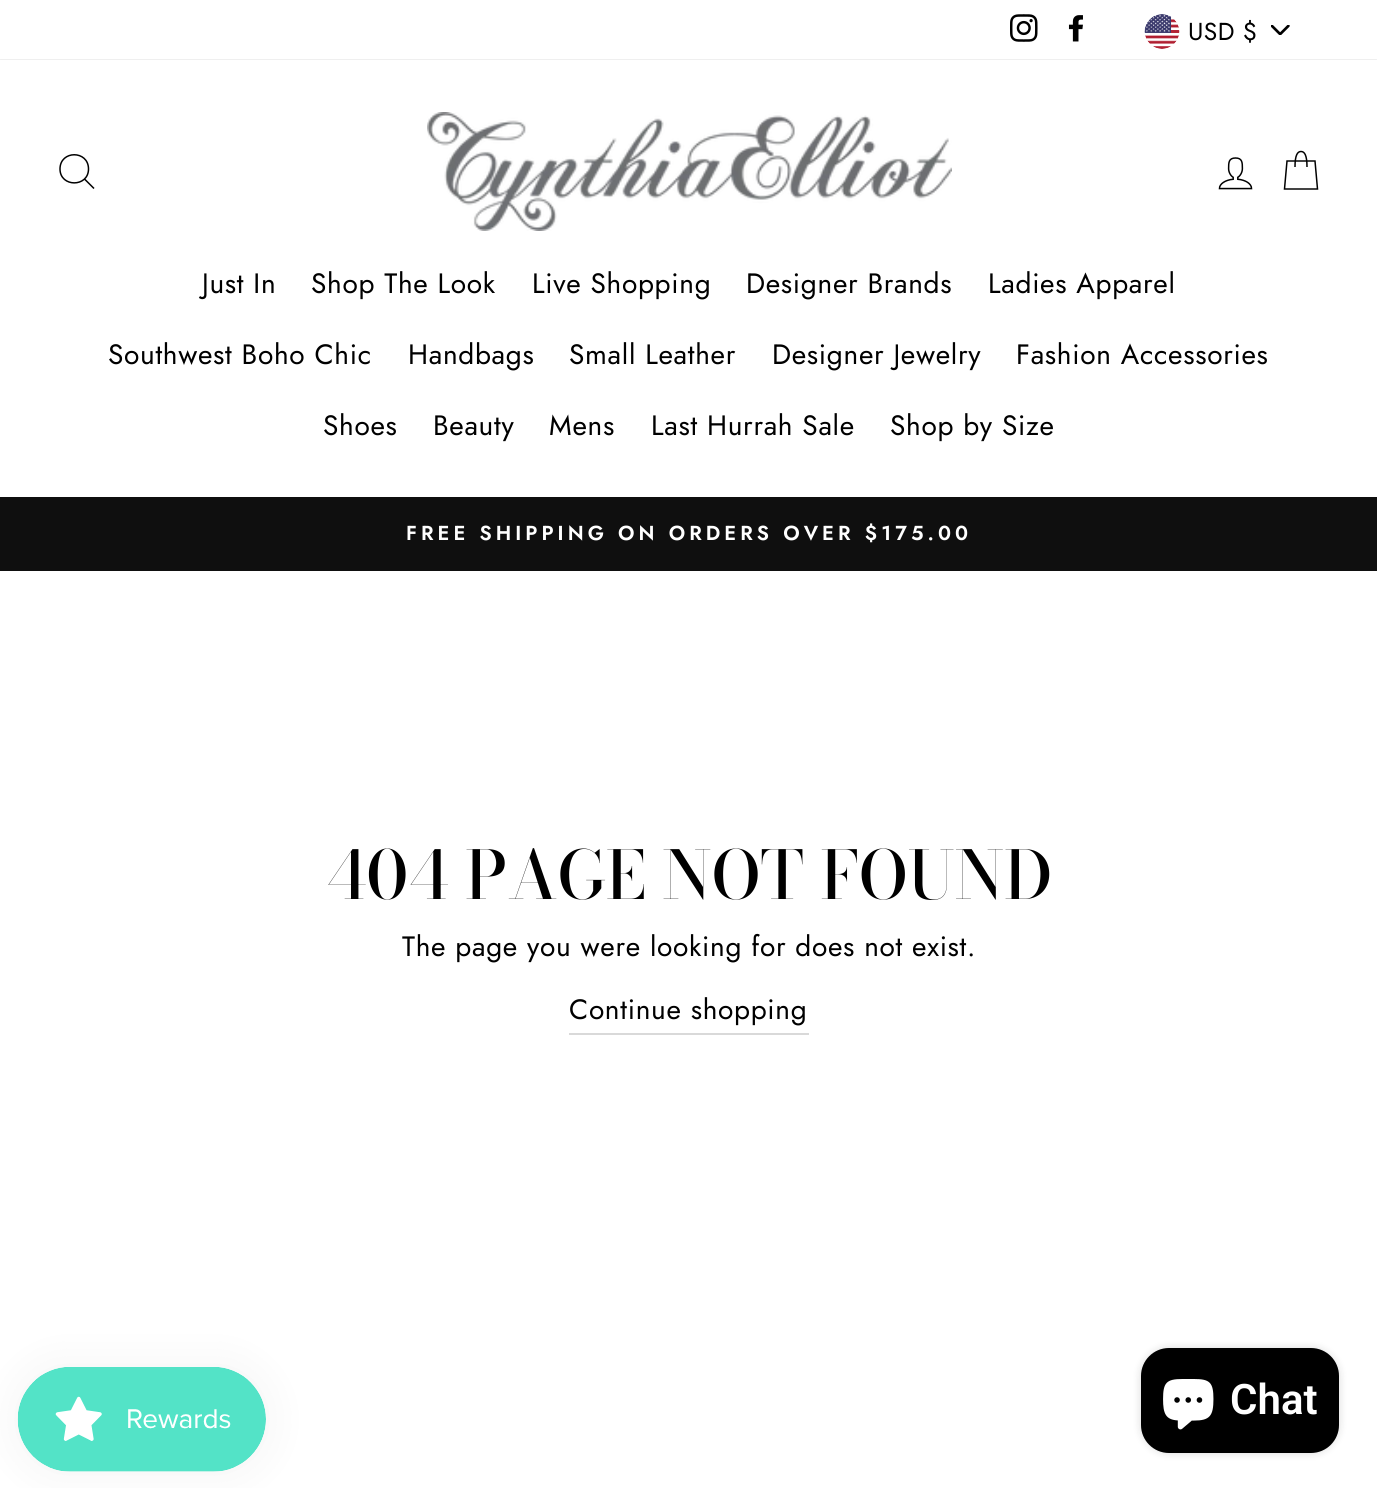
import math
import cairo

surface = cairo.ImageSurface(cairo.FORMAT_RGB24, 1377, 1488)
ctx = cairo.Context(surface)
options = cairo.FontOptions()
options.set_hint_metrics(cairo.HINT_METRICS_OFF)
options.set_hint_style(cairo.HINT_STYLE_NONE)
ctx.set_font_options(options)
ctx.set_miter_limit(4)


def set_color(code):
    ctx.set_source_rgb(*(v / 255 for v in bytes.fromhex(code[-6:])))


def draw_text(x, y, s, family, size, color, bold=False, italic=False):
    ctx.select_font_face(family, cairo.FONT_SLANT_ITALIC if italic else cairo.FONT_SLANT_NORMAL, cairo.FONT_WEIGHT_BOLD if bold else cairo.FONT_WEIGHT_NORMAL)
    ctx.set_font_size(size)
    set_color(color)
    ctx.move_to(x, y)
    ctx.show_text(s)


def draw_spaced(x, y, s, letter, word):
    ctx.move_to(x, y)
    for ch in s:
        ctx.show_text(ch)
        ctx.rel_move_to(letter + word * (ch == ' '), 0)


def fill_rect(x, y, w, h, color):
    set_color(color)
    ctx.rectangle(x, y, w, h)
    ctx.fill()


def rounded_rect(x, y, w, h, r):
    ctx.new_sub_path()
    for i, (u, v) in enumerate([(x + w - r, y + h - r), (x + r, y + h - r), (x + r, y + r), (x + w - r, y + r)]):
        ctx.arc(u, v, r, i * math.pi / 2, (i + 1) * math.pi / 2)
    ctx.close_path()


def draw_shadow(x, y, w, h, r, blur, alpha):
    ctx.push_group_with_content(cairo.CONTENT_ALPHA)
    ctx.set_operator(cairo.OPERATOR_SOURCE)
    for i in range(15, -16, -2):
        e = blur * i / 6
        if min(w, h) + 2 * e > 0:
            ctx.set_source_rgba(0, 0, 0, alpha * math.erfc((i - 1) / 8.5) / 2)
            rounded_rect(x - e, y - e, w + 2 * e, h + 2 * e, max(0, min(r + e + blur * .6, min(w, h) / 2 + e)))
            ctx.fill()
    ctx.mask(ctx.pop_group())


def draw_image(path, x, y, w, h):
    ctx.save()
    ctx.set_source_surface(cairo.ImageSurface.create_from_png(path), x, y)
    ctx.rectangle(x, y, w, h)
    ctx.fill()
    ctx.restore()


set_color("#ffffff")
ctx.paint()
draw_image("assets/img1.png", 1010, 14, 28, 28)
draw_image("assets/img2.png", 1068, 15, 15, 27)
draw_image("assets/img3.png", 1271, 25, 19, 10)
draw_image("assets/img4.png", 1144, 14, 36, 35)
ctx.select_font_face("Jost")
ctx.set_font_size(24.5)
set_color("#000000")
draw_spaced(1188, 40, "USD $", 0.5, 0)
ctx.save()
ctx.rectangle(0, 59, 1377, 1)
ctx.clip()
set_color("#000000")
draw_shadow(0, 60, 1377, 437, 0, 1, 0.2)
ctx.restore()
ctx.new_path()
ctx.move_to(88.5, 169)
ctx.curve_to(88.5, 187.5, 60, 187.5, 60, 169)
ctx.curve_to(60, 150, 88.5, 150, 88.5, 169)
ctx.close_path()
ctx.move_to(94, 188.5)
ctx.line_to(84.5, 179)
ctx.set_line_width(1.5)
ctx.stroke()
draw_image("assets/img5.png", 427, 112, 525, 119)
draw_image("assets/img6.png", 1218, 157, 35, 33)
ctx.new_path()
ctx.move_to(1295, 167)
ctx.curve_to(1295, 155, 1297.5, 151.5, 1301, 151.5)
ctx.curve_to(1304.5, 151.5, 1307, 155, 1307, 167)
ctx.move_to(1287, 161)
ctx.line_to(1315, 161)
ctx.line_to(1317.5, 189)
ctx.line_to(1284.5, 189)
ctx.close_path()
ctx.stroke()
ctx.set_font_size(28)
draw_spaced(202, 293, "Just In", 0.7, 0)
draw_spaced(311, 293, "Shop The Look", 0.7, 0)
draw_spaced(532, 293, "Live Shopping", 0.7, 0)
draw_spaced(746, 293, "Designer Brands", 0.7, 0)
draw_spaced(988, 293, "Ladies Apparel", 0.7, 0)
draw_spaced(108, 364, "Southwest Boho Chic", 0.7, 0)
draw_spaced(408, 364, "Handbags", 0.7, 0)
draw_spaced(569, 364, "Small Leather", 0.7, 0)
draw_spaced(772, 364, "Designer Jewelry", 0.7, 0)
draw_spaced(1016, 364, "Fashion Accessories", 0.7, 0)
draw_spaced(323, 435, "Shoes", 0.7, 0)
draw_spaced(433, 435, "Beauty", 0.7, 0)
draw_spaced(549, 435, "Mens", 0.7, 0)
draw_spaced(651, 435, "Last Hurrah Sale", 0.7, 0)
draw_spaced(890, 435, "Shop by Size", 0.7, 0)
fill_rect(0, 497, 1377, 74, "#0f0f0f")
ctx.select_font_face("Jost SemiBold")
ctx.set_font_size(20.25)
set_color("#ffffff")
draw_spaced(406, 540, "FREE SHIPPING ON ORDERS OVER $175.00", 4.05, 0)
draw_text(326, 899, "404 PAGE NOT FOUND", "Bodoni Moda Medium", 66.5, "#000000")
ctx.select_font_face("Jost")
ctx.set_font_size(28)
draw_spaced(402, 956, "The page you were looking for does not exist.", 0.7, 0)
fill_rect(569, 1033, 240, 2, "#d9d9d9")
set_color("#000000")
draw_spaced(569, 1019, "Continue shopping", 0.7, 0)
set_color("#000000")
draw_shadow(18, 1367, 248, 105, 52.5, 22, 0.05)
draw_image("assets/img7.png", 17, 1367, 249, 105)
draw_shadow(1141, 1348, 198, 105, 28, 4.5, 0.15)
set_color("#000000")
rounded_rect(1141, 1348, 198, 105, 28)
ctx.fill()
draw_image("assets/img8.png", 1163, 1379, 51, 51)
draw_text(1230, 1414, "Chat", "Roboto SemiBold", 42, "#ffffff")
surface.write_to_png("output.png")
